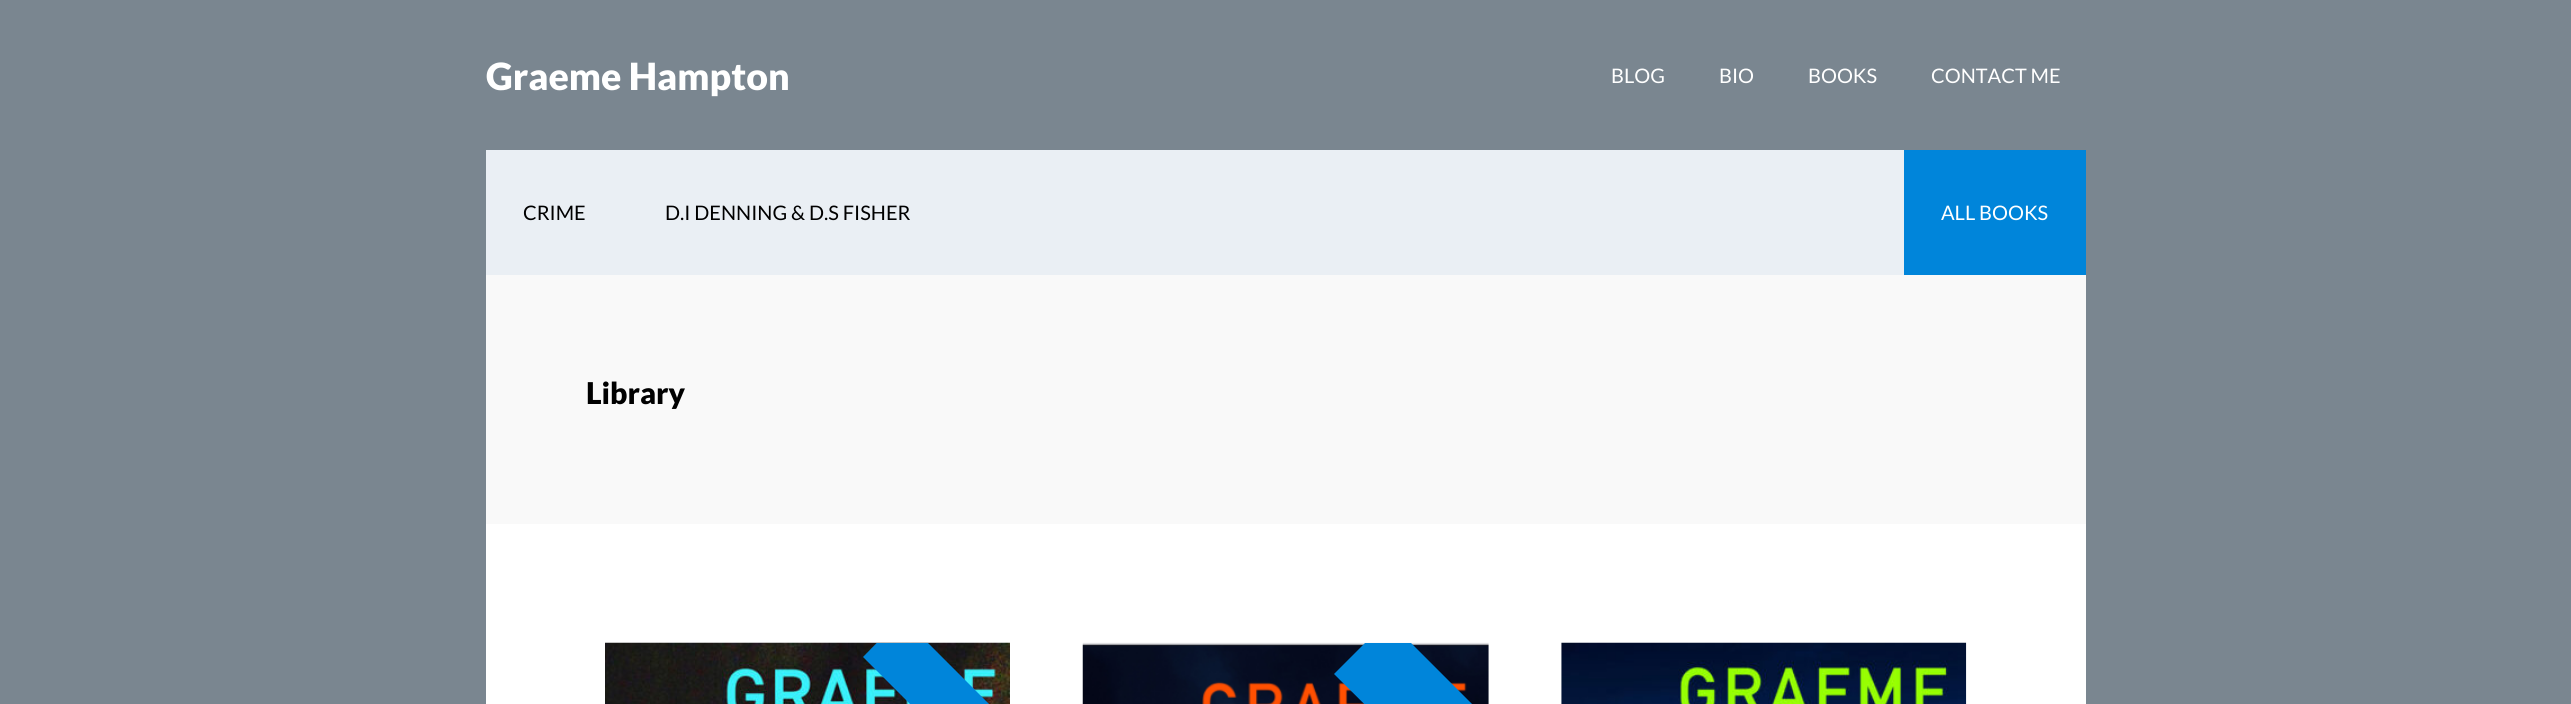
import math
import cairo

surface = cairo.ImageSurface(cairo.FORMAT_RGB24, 2571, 704)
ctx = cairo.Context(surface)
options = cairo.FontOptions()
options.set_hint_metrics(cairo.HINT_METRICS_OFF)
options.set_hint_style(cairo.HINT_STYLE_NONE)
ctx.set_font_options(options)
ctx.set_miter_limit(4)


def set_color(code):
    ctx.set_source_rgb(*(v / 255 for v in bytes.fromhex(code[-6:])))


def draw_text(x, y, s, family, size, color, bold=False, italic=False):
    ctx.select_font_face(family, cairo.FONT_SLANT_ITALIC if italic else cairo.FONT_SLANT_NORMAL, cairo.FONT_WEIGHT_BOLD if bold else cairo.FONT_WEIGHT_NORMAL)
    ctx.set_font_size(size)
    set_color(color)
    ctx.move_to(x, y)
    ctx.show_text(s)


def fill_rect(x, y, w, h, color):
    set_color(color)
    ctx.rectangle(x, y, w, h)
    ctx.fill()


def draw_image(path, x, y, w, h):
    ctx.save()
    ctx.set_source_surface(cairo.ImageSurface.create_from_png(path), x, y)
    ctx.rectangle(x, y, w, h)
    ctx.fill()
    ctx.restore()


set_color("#7a8690")
ctx.paint()
draw_text(486, 90, "Graeme Hampton", "Lato Black", 37.5, "#ffffff")
draw_text(1611, 83, "BLOG", "Lato", 20, "#ffffff")
draw_text(1719, 83, "BIO", "Lato", 20, "#ffffff")
draw_text(1808, 83, "BOOKS", "Lato", 20, "#ffffff")
draw_text(1931, 83, "CONTACT ME", "Lato", 20, "#ffffff")
fill_rect(486, 524, 1600, 180, "#ffffff")
fill_rect(486, 150, 1418, 125, "#eaeff4")
draw_text(523, 220, "CRIME", "Lato", 20, "#000000")
draw_text(665, 220, "D.I DENNING & D.S FISHER", "Lato", 20, "#000000")
fill_rect(1904, 150, 182, 125, "#0085da")
draw_text(1941, 220, "ALL BOOKS", "Lato", 20, "#ffffff")
fill_rect(486, 275, 1600, 249, "#f9f9f9")
draw_text(586, 404, "Library", "Lato Black", 30, "#000000")
draw_image("assets/img1.png", 605, 642, 405, 62)
ctx.save()
ctx.rectangle(605, 643, 405, 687)
ctx.clip()
set_color("#0085da")
ctx.new_path()
ctx.move_to(902, 617)
ctx.line_to(1044, 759)
ctx.line_to(1004, 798)
ctx.line_to(863, 657)
ctx.close_path()
ctx.fill()
ctx.restore()
draw_image("assets/img2.png", 1082, 642, 407, 62)
ctx.save()
ctx.rectangle(1083, 643, 406, 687)
ctx.clip()
set_color("#0085da")
ctx.new_path()
ctx.move_to(1388, 620)
ctx.line_to(1530, 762)
ctx.line_to(1476, 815)
ctx.line_to(1334, 674)
ctx.close_path()
ctx.fill()
ctx.restore()
draw_image("assets/img3.png", 1561, 642, 406, 62)
surface.write_to_png("output.png")
